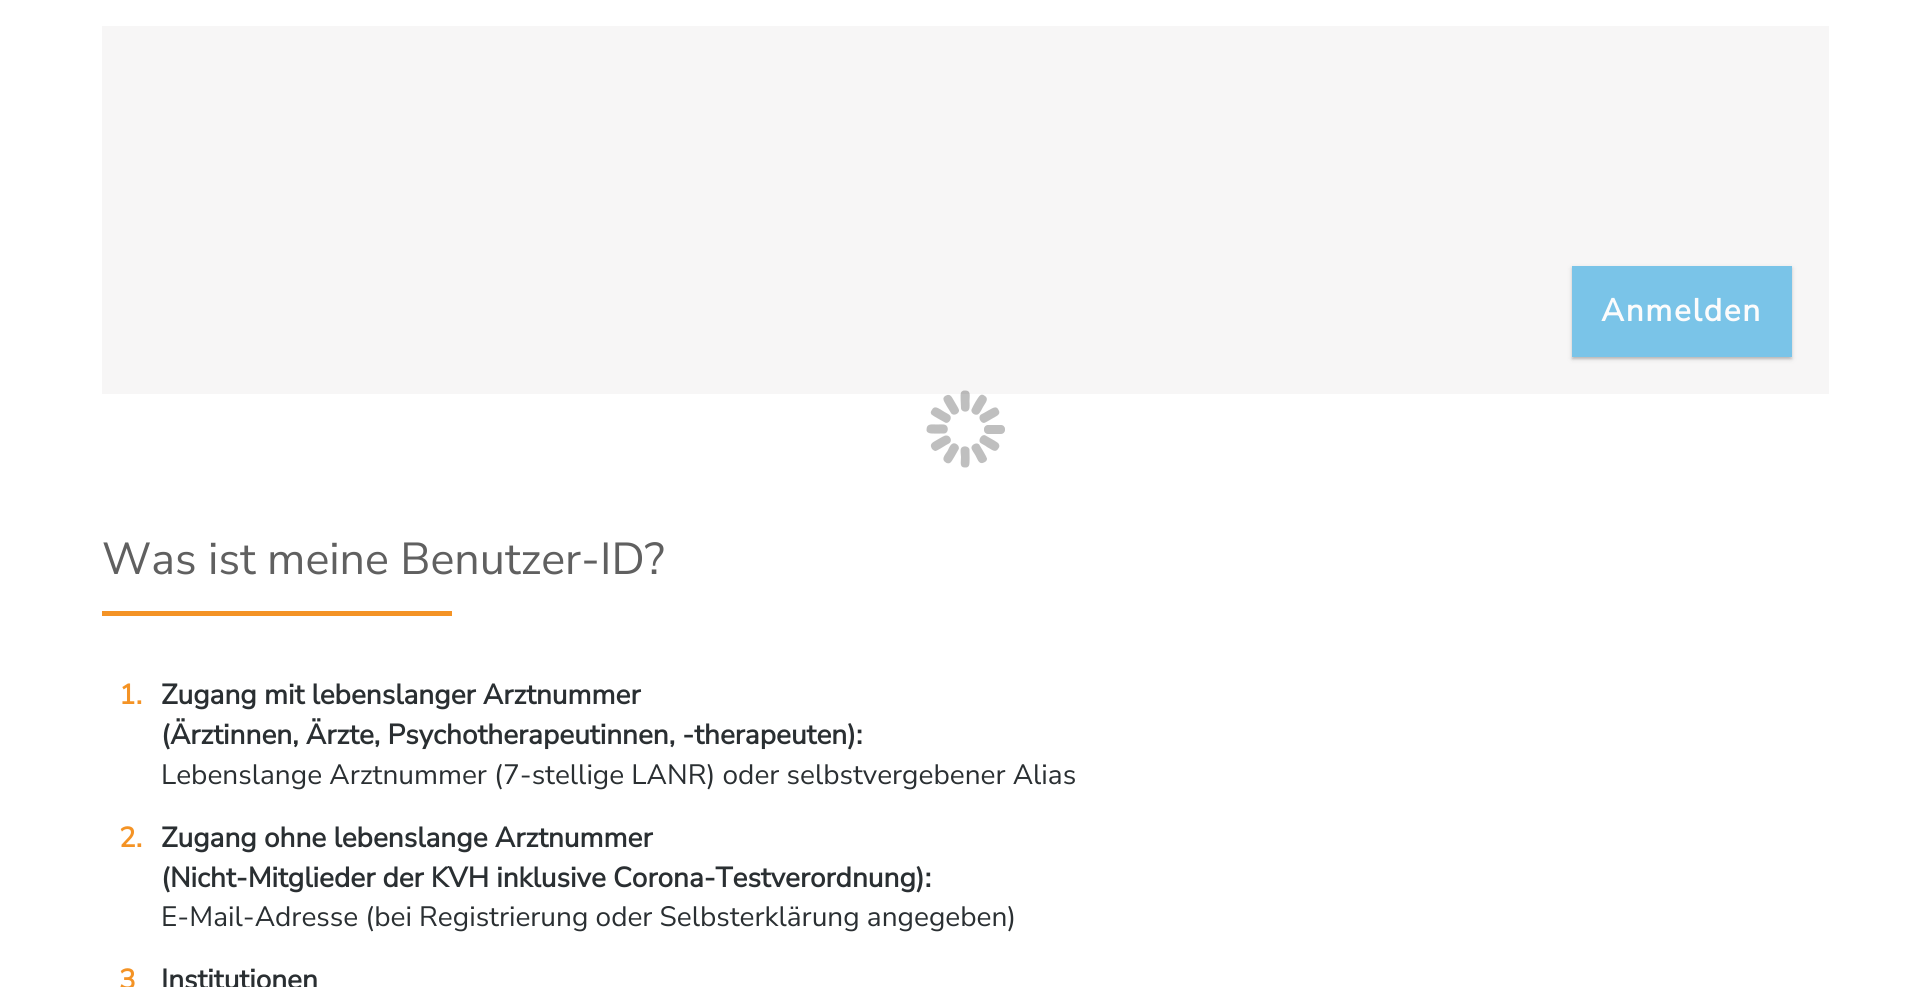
import math
import cairo

surface = cairo.ImageSurface(cairo.FORMAT_RGB24, 1929, 987)
ctx = cairo.Context(surface)
options = cairo.FontOptions()
options.set_hint_metrics(cairo.HINT_METRICS_OFF)
options.set_hint_style(cairo.HINT_STYLE_NONE)
ctx.set_font_options(options)
ctx.set_miter_limit(4)


def set_color(code):
    ctx.set_source_rgb(*(v / 255 for v in bytes.fromhex(code[-6:])))


def draw_text(x, y, s, family, size, color, bold=False, italic=False):
    ctx.select_font_face(family, cairo.FONT_SLANT_ITALIC if italic else cairo.FONT_SLANT_NORMAL, cairo.FONT_WEIGHT_BOLD if bold else cairo.FONT_WEIGHT_NORMAL)
    ctx.set_font_size(size)
    set_color(color)
    ctx.move_to(x, y)
    ctx.show_text(s)


def draw_spaced(x, y, s, letter, word):
    ctx.move_to(x, y)
    for ch in s:
        ctx.show_text(ch)
        ctx.rel_move_to(letter + word * (ch == ' '), 0)


def fill_rect(x, y, w, h, color):
    set_color(color)
    ctx.rectangle(x, y, w, h)
    ctx.fill()


def rounded_rect(x, y, w, h, r):
    ctx.new_sub_path()
    for i, (u, v) in enumerate([(x + w - r, y + h - r), (x + r, y + h - r), (x + r, y + r), (x + w - r, y + r)]):
        ctx.arc(u, v, r, i * math.pi / 2, (i + 1) * math.pi / 2)
    ctx.close_path()


def draw_shadow(x, y, w, h, r, blur, alpha):
    ctx.push_group_with_content(cairo.CONTENT_ALPHA)
    ctx.set_operator(cairo.OPERATOR_SOURCE)
    for i in range(15, -16, -2):
        e = blur * i / 6
        if min(w, h) + 2 * e > 0:
            ctx.set_source_rgba(0, 0, 0, alpha * math.erfc((i - 1) / 8.5) / 2)
            rounded_rect(x - e, y - e, w + 2 * e, h + 2 * e, max(0, min(r + e + blur * .6, min(w, h) / 2 + e)))
            ctx.fill()
    ctx.mask(ctx.pop_group())


set_color("#ffffff")
ctx.paint()
fill_rect(102, 26, 1727, 368, "#f7f6f6")
set_color("#565656")
draw_shadow(1573, 271, 217, 88, 0, 1, 0.12)
draw_shadow(1572, 268, 220, 91, 0, 1, 0.14)
draw_shadow(1572, 268, 220, 91, 0, 2.5, 0.2)
fill_rect(1572, 266, 220, 91, "#7ac4e8")
ctx.select_font_face("Nunito Sans", cairo.FONT_SLANT_NORMAL, cairo.FONT_WEIGHT_BOLD)
ctx.set_font_size(31.5)
set_color("#fcfcfc")
draw_spaced(1601, 321, "Anmelden", 1.75, 0)
draw_text(102, 574, "Was ist meine Benutzer-ID?", "Nunito Sans", 44.75, "#606060")
fill_rect(102, 611, 350, 5, "#f49325")
draw_text(119, 704, "1.", "Nunito Sans", 28, "#f49325", bold=True)
draw_text(161, 704, "Zugang mit lebenslanger Arztnummer", "Nunito Sans", 28, "#2a2f32", bold=True)
draw_text(161, 744, "(Ärztinnen, Ärzte, Psychotherapeutinnen, -therapeuten):", "Nunito Sans", 28, "#2a2f32", bold=True)
draw_text(161, 784, "Lebenslange Arztnummer (7-stellige LANR) oder selbstvergebener Alias", "Nunito Sans", 28, "#2a2f32")
draw_text(119, 847, "2.", "Nunito Sans", 28, "#f49325", bold=True)
draw_text(161, 847, "Zugang ohne lebenslange Arztnummer", "Nunito Sans", 28, "#2a2f32", bold=True)
draw_text(161, 887, "(Nicht-Mitglieder der KVH inklusive Corona-Testverordnung):", "Nunito Sans", 28, "#2a2f32", bold=True)
draw_text(161, 926, "E-Mail-Adresse (bei Registrierung oder Selbsterklärung angegeben)", "Nunito Sans", 28, "#2a2f32")
draw_text(119, 989, "3", "Nunito Sans", 28, "#f49325", bold=True)
draw_text(161, 989, "Institutionen", "Nunito Sans", 28, "#2a2f32", bold=True)
set_color("#bfbfbf")
ctx.new_path()
ctx.move_to(969.5, 450)
ctx.curve_to(969.5, 453, 970, 463.5, 969, 465.5)
ctx.curve_to(968.5, 466.5, 967.5, 467.5, 966, 467.5)
ctx.curve_to(959, 468, 961, 462.5, 961, 457)
ctx.curve_to(961, 455, 960, 450.5, 961, 448.5)
ctx.curve_to(962.5, 445, 969.5, 446, 969.5, 450)
ctx.close_path()
ctx.move_to(958.5, 449.5)
ctx.curve_to(957, 452, 952, 461.5, 950.5, 462.5)
ctx.curve_to(949.5, 463.5, 948, 463.5, 946.5, 463)
ctx.curve_to(940.5, 459.5, 944.5, 455.5, 947.5, 451)
ctx.curve_to(948.5, 449, 950, 445, 952, 444)
ctx.curve_to(955, 441.5, 960.5, 446, 958.5, 449.5)
ctx.close_path()
ctx.fill()
ctx.new_path()
ctx.move_to(949, 443.5)
ctx.curve_to(946.5, 444.5, 938, 450.5, 935.5, 451)
ctx.curve_to(934.5, 451, 933, 450, 932, 449)
ctx.curve_to(928.5, 443, 934, 442, 938.5, 439)
ctx.curve_to(940.5, 438, 944, 435.5, 946, 435.5)
ctx.curve_to(950, 435, 953, 441, 949, 443.5)
ctx.close_path()
ctx.move_to(944, 433.5)
ctx.curve_to(941.5, 433.5, 930.5, 434, 929, 433)
ctx.curve_to(927.5, 432.5, 926.5, 431.5, 926.5, 430)
ctx.curve_to(926.5, 423, 932, 424.5, 937, 424.5)
ctx.curve_to(939.5, 424.5, 943.5, 424, 945.5, 425)
ctx.curve_to(949, 426.5, 948.5, 433.5, 944, 433.5)
ctx.close_path()
ctx.move_to(945, 422.5)
ctx.curve_to(942.5, 421, 933, 416, 931.5, 414.5)
ctx.curve_to(930.5, 413, 930.5, 412, 931.5, 410.5)
ctx.curve_to(934.5, 404.5, 938.5, 408.5, 943, 411)
ctx.curve_to(945, 412.5, 949, 414, 950, 415.5)
ctx.curve_to(952.5, 418.5, 948.5, 424.5, 945, 422.5)
ctx.close_path()
ctx.fill()
ctx.set_source_rgba(0, 0, 0, 0.25)
ctx.new_path()
ctx.move_to(951, 413)
ctx.curve_to(949.5, 410.5, 943.5, 401.5, 943.5, 399.5)
ctx.curve_to(943, 398, 944, 397, 945, 396)
ctx.curve_to(951, 392.5, 952, 398, 955, 402.5)
ctx.curve_to(956, 404.5, 958.5, 408, 959, 410)
ctx.curve_to(959.5, 414, 953, 416.5, 951, 413)
ctx.close_path()
ctx.move_to(961, 408)
ctx.curve_to(961, 405, 960, 394.5, 961, 392.5)
ctx.curve_to(961.5, 391.5, 963, 390.5, 964, 390.5)
ctx.curve_to(971.5, 390, 969.5, 395.5, 969.5, 401)
ctx.curve_to(969.5, 403, 970, 407.5, 969, 409.5)
ctx.curve_to(967.5, 413, 961, 412, 961, 408)
ctx.close_path()
ctx.move_to(972, 408.5)
ctx.curve_to(973, 406, 978, 397, 980, 395.5)
ctx.curve_to(981, 394.5, 982.5, 394.5, 983.5, 395)
ctx.curve_to(990, 398.5, 985.5, 402.5, 983, 407)
ctx.curve_to(982, 409, 980, 413, 978.5, 414)
ctx.curve_to(975.5, 416.5, 969.5, 412.5, 972, 408.5)
ctx.close_path()
ctx.fill()
set_color("#bfbfbf")
ctx.new_path()
ctx.move_to(981, 414.5)
ctx.curve_to(983.5, 413.5, 992.5, 407.5, 994.5, 407.5)
ctx.curve_to(996, 407, 997.5, 408, 998, 409)
ctx.curve_to(1002, 415, 996, 416, 991.5, 419)
ctx.curve_to(989.5, 420, 986, 422.5, 984, 423)
ctx.curve_to(980.5, 423, 977.5, 417, 981, 414.5)
ctx.close_path()
ctx.fill()
rounded_rect(984, 425, 21, 9, 4)
ctx.fill()
ctx.new_path()
ctx.move_to(985.5, 435.5)
ctx.curve_to(988, 437, 997.5, 442, 998.5, 443.5)
ctx.curve_to(999.5, 445, 999.5, 446.5, 999, 447.5)
ctx.curve_to(995.5, 454, 992, 449.5, 987, 447)
ctx.curve_to(985.5, 445.5, 981.5, 444, 980, 442.5)
ctx.curve_to(978, 439.5, 982, 433.5, 985.5, 435.5)
ctx.close_path()
ctx.fill()
ctx.set_source_rgba(0, 0, 0, 0.25)
ctx.new_path()
ctx.move_to(979.5, 445)
ctx.curve_to(981, 447.5, 986.5, 456.5, 987, 458.5)
ctx.curve_to(987, 460, 986.5, 461, 985, 462)
ctx.curve_to(979, 465.5, 978, 460, 975.5, 455.5)
ctx.curve_to(974.5, 453.5, 971.5, 450, 971.5, 448)
ctx.curve_to(971, 444.5, 977.5, 441.5, 979.5, 445)
ctx.close_path()
ctx.fill()
surface.write_to_png("output.png")
